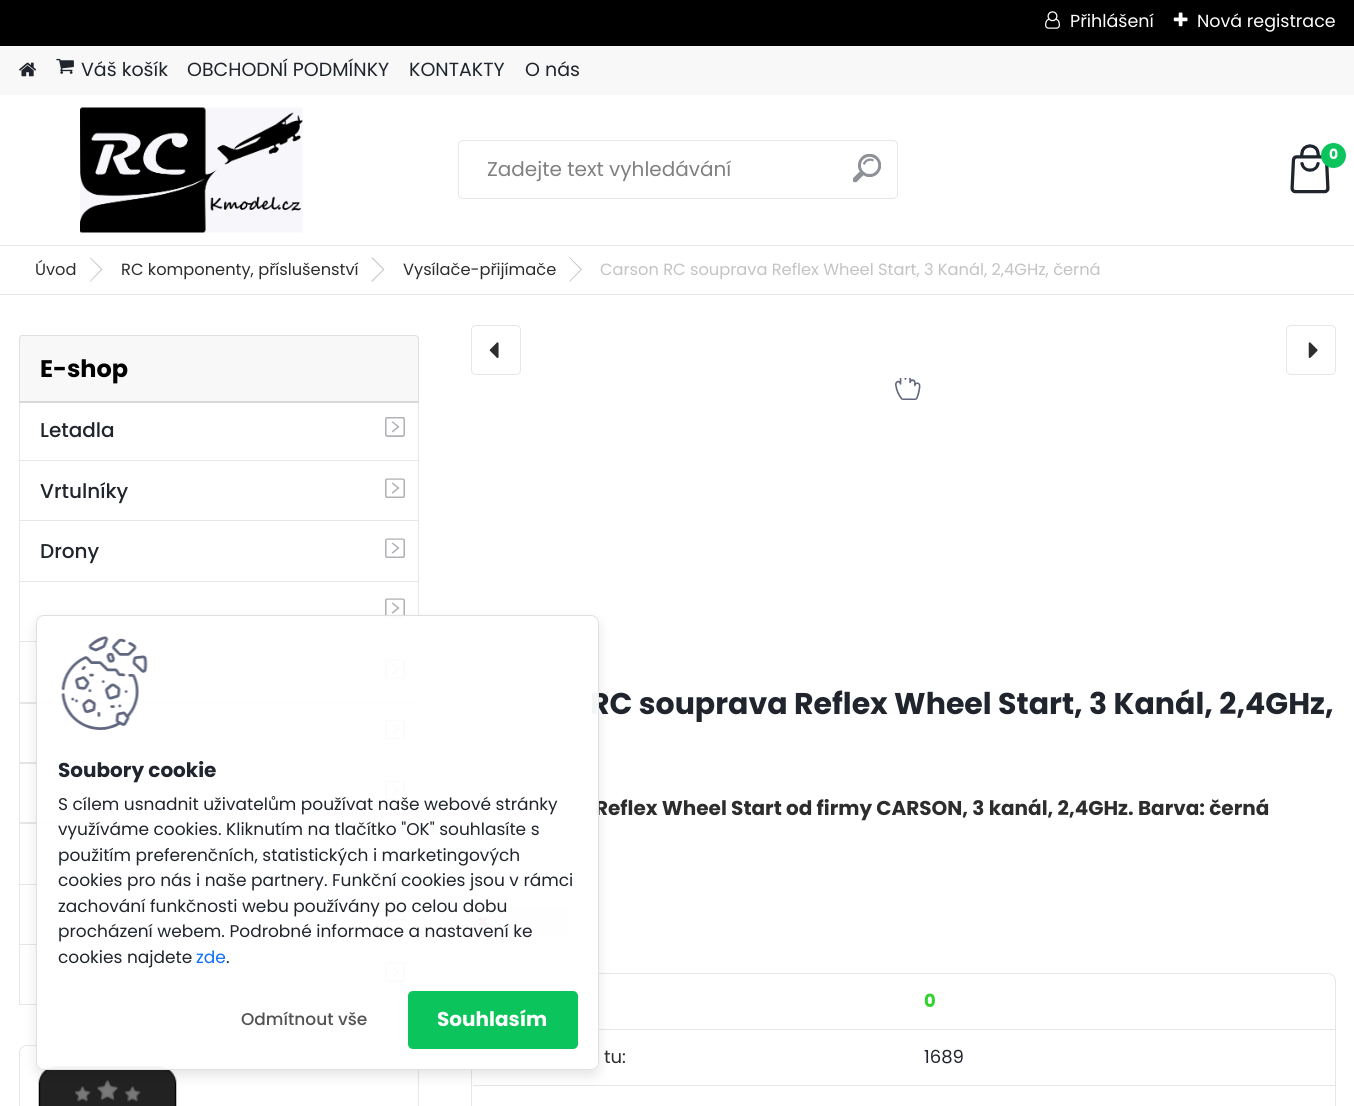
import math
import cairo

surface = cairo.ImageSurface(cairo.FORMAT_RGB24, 1354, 1106)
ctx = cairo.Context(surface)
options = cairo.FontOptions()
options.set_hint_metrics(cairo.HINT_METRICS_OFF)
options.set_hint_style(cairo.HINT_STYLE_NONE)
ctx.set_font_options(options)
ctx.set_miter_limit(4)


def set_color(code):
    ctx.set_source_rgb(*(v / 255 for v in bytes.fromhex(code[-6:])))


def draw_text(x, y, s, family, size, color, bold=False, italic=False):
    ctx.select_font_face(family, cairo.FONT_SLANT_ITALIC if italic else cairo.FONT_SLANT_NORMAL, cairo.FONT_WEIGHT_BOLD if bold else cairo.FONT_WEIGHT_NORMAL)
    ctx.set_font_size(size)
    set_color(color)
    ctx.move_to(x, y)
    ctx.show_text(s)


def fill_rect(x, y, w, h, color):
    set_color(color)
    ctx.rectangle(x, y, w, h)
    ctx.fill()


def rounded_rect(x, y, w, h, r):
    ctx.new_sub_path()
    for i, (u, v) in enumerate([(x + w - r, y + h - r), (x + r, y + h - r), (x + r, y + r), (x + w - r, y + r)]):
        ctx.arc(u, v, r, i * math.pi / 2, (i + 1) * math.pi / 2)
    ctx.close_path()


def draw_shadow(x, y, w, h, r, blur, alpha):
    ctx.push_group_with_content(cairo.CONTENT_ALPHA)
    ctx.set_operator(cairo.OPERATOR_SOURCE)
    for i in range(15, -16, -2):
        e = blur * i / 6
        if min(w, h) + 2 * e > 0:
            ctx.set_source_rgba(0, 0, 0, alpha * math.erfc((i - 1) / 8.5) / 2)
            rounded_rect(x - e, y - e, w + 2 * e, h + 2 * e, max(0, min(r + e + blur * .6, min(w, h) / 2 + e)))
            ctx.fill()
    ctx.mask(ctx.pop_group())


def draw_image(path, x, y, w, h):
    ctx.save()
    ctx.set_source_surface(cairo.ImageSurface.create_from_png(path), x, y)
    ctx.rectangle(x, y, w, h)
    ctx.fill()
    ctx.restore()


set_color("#ffffff")
ctx.paint()
fill_rect(0, 0, 1354, 46, "#000000")
draw_image("assets/img1.png", 1045, 11, 15, 18)
draw_text(1070, 27, "Přihlášení", "Poppins", 17.5, "#ffffff")
draw_image("assets/img2.png", 1173, 12, 15, 15)
draw_text(1197, 27, "Nová registrace", "Poppins", 17.5, "#ffffff")
fill_rect(0, 245, 1354, 1, "#e6e6e6")
fill_rect(0, 46, 1354, 49, "#f8f8f8")
draw_image("assets/img3.png", 19, 62, 18, 15)
draw_image("assets/img4.png", 56, 58, 18, 16)
draw_text(81, 76, "Váš košík", "Poppins", 19, "#1f242d")
draw_text(187, 76, "OBCHODNÍ PODMÍNKY", "Poppins", 19, "#1f242d")
draw_text(409, 76, "KONTAKTY", "Poppins", 19, "#1f242d")
draw_text(525, 76, "O nás", "Poppins", 19, "#1f242d")
draw_image("assets/img5.png", 80, 107, 223, 126)
draw_image("assets/img6.png", 1290, 144, 40, 50)
set_color("#0bc45c")
ctx.arc(1333.5, 155.5, 12.5, 0, 2 * math.pi)
ctx.fill()
draw_text(1329, 159, "0", "Poppins", 14, "#ffffff", bold=True)
rounded_rect(458.5, 140.5, 439, 58, 4.5)
set_color("#e6e6e6")
ctx.set_line_width(1)
ctx.stroke()
draw_text(487, 176, "Zadejte text vyhledávání", "Poppins", 20, "#808080")
draw_image("assets/img7.png", 853, 154, 28, 29)
fill_rect(0, 294, 1354, 1, "#e6e6e6")
draw_text(35, 275, "Úvod", "Poppins", 16.25, "#2d2d2d")
set_color("#c3c3c3")
ctx.new_path()
ctx.move_to(89.5, 257.5)
ctx.line_to(90.5, 257.5)
ctx.line_to(102.5, 269.5)
ctx.line_to(101, 269.5)
ctx.close_path()
ctx.fill()
ctx.set_source_rgba(0.216, 0.216, 0.216, 0.3)
ctx.new_path()
ctx.move_to(101, 269.5)
ctx.line_to(102.5, 269.5)
ctx.line_to(90.5, 281.5)
ctx.line_to(89.5, 281.5)
ctx.close_path()
ctx.fill()
draw_text(121, 275, "RC komponenty, příslušenství", "Poppins", 16.25, "#2d2d2d")
set_color("#c3c3c3")
ctx.new_path()
ctx.move_to(371, 257.5)
ctx.line_to(372.5, 257.5)
ctx.line_to(384.5, 269.5)
ctx.line_to(383, 269.5)
ctx.close_path()
ctx.fill()
ctx.set_source_rgba(0.216, 0.216, 0.216, 0.3)
ctx.new_path()
ctx.move_to(383, 269.5)
ctx.line_to(384.5, 269.5)
ctx.line_to(372.5, 281.5)
ctx.line_to(371, 281.5)
ctx.close_path()
ctx.fill()
draw_text(403, 275, "Vysílače-přijímače", "Poppins", 16.25, "#2d2d2d")
set_color("#c3c3c3")
ctx.new_path()
ctx.move_to(569, 257.5)
ctx.line_to(570, 257.5)
ctx.line_to(582, 269.5)
ctx.line_to(580.5, 269.5)
ctx.close_path()
ctx.fill()
ctx.new_path()
ctx.move_to(580.5, 269.5)
ctx.line_to(582, 269.5)
ctx.line_to(570, 281.5)
ctx.line_to(569, 281.5)
ctx.close_path()
ctx.fill()
draw_text(600, 275, "Carson RC souprava Reflex Wheel Start, 3 Kanál, 2,4GHz, černá", "Poppins", 16.25, "#c3c3c3")
set_color("#e6e6e6")
ctx.new_path()
ctx.move_to(419, 401)
ctx.line_to(419, 461)
ctx.line_to(418, 460)
ctx.line_to(418, 401)
ctx.close_path()
ctx.fill()
ctx.set_source_rgba(0, 0, 0, 0.1)
ctx.new_path()
ctx.move_to(419, 461)
ctx.line_to(19, 461)
ctx.line_to(20, 460)
ctx.line_to(418, 460)
ctx.close_path()
ctx.fill()
ctx.new_path()
ctx.move_to(19, 461)
ctx.line_to(19, 401)
ctx.line_to(20, 401)
ctx.line_to(20, 460)
ctx.close_path()
ctx.fill()
set_color("#d9d9d9")
ctx.new_path()
ctx.move_to(19, 401)
ctx.line_to(19, 403)
ctx.line_to(419, 403)
ctx.line_to(419, 339)
ctx.line_to(419, 401)
ctx.close_path()
ctx.fill()
set_color("#f8f8f8")
ctx.new_path()
ctx.move_to(23, 335)
ctx.line_to(415, 335)
ctx.curve_to(417, 335, 419, 337, 419, 339)
ctx.line_to(419, 401)
ctx.line_to(19, 401)
ctx.line_to(19, 339)
ctx.curve_to(19, 337, 21, 335, 23, 335)
ctx.close_path()
ctx.fill()
set_color("#dfdfdf")
ctx.set_fill_rule(cairo.FILL_RULE_EVEN_ODD)
ctx.new_path()
ctx.move_to(22, 335)
ctx.line_to(415, 335)
ctx.curve_to(417, 335, 419, 337, 419, 339)
ctx.line_to(419, 401)
ctx.line_to(19, 401)
ctx.line_to(19, 339)
ctx.curve_to(19, 337, 20, 335, 22, 335)
ctx.close_path()
ctx.move_to(22, 336)
ctx.line_to(415, 336)
ctx.curve_to(416, 336, 418, 337, 418, 339)
ctx.line_to(418, 401)
ctx.line_to(20, 401)
ctx.line_to(20, 339)
ctx.curve_to(20, 337, 21, 336, 22, 336)
ctx.close_path()
ctx.fill()
draw_text(40, 377, "E-shop", "Poppins", 24, "#000000", bold=True)
draw_text(40, 437, "Letadla", "Poppins Medium", 20, "#1f242d")
draw_image("assets/img8.png", 385, 417, 20, 20)
set_color("#e6e6e6")
ctx.set_fill_rule(cairo.FILL_RULE_WINDING)
ctx.new_path()
ctx.move_to(419, 461)
ctx.line_to(419, 521)
ctx.line_to(418, 520)
ctx.line_to(418, 461)
ctx.close_path()
ctx.fill()
ctx.set_source_rgba(0, 0, 0, 0.1)
ctx.new_path()
ctx.move_to(419, 521)
ctx.line_to(19, 521)
ctx.line_to(20, 520)
ctx.line_to(418, 520)
ctx.close_path()
ctx.fill()
ctx.new_path()
ctx.move_to(19, 521)
ctx.line_to(19, 461)
ctx.line_to(20, 461)
ctx.line_to(20, 520)
ctx.close_path()
ctx.fill()
draw_text(40, 498, "Vrtulníky", "Poppins Medium", 20, "#1f242d")
draw_image("assets/img9.png", 385, 478, 20, 20)
set_color("#e6e6e6")
ctx.new_path()
ctx.move_to(419, 521)
ctx.line_to(419, 582)
ctx.line_to(418, 581)
ctx.line_to(418, 521)
ctx.close_path()
ctx.fill()
ctx.set_source_rgba(0, 0, 0, 0.1)
ctx.new_path()
ctx.move_to(419, 582)
ctx.line_to(19, 582)
ctx.line_to(20, 581)
ctx.line_to(418, 581)
ctx.close_path()
ctx.fill()
ctx.new_path()
ctx.move_to(19, 582)
ctx.line_to(19, 521)
ctx.line_to(20, 521)
ctx.line_to(20, 581)
ctx.close_path()
ctx.fill()
draw_text(40, 558, "Drony", "Poppins Medium", 20, "#1f242d")
draw_image("assets/img9.png", 385, 538, 20, 20)
set_color("#e6e6e6")
ctx.new_path()
ctx.move_to(419, 582)
ctx.line_to(419, 642)
ctx.line_to(418, 641)
ctx.line_to(418, 582)
ctx.close_path()
ctx.fill()
ctx.set_source_rgba(0, 0, 0, 0.1)
ctx.new_path()
ctx.move_to(419, 642)
ctx.line_to(19, 642)
ctx.line_to(20, 641)
ctx.line_to(418, 641)
ctx.close_path()
ctx.fill()
ctx.new_path()
ctx.move_to(19, 642)
ctx.line_to(19, 582)
ctx.line_to(20, 582)
ctx.line_to(20, 641)
ctx.close_path()
ctx.fill()
draw_image("assets/img9.png", 385, 598, 20, 20)
set_color("#e6e6e6")
ctx.new_path()
ctx.move_to(419, 642)
ctx.line_to(419, 704)
ctx.line_to(418, 702)
ctx.line_to(418, 642)
ctx.close_path()
ctx.fill()
ctx.set_source_rgba(0, 0, 0, 0.1)
ctx.new_path()
ctx.move_to(419, 704)
ctx.line_to(19, 704)
ctx.line_to(20, 702)
ctx.line_to(418, 702)
ctx.close_path()
ctx.fill()
ctx.new_path()
ctx.move_to(19, 704)
ctx.line_to(19, 642)
ctx.line_to(20, 642)
ctx.line_to(20, 702)
ctx.close_path()
ctx.fill()
draw_image("assets/img10.png", 385, 659, 20, 20)
set_color("#e6e6e6")
ctx.new_path()
ctx.move_to(419, 704)
ctx.line_to(419, 764)
ctx.line_to(418, 762)
ctx.line_to(418, 704)
ctx.close_path()
ctx.fill()
ctx.set_source_rgba(0, 0, 0, 0.1)
ctx.new_path()
ctx.move_to(419, 764)
ctx.line_to(19, 764)
ctx.line_to(20, 762)
ctx.line_to(418, 762)
ctx.close_path()
ctx.fill()
ctx.new_path()
ctx.move_to(19, 764)
ctx.line_to(19, 704)
ctx.line_to(20, 704)
ctx.line_to(20, 762)
ctx.close_path()
ctx.fill()
draw_image("assets/img10.png", 385, 719, 20, 20)
set_color("#e6e6e6")
ctx.new_path()
ctx.move_to(419, 764)
ctx.line_to(419, 824)
ctx.line_to(418, 822)
ctx.line_to(418, 764)
ctx.close_path()
ctx.fill()
ctx.set_source_rgba(0, 0, 0, 0.1)
ctx.new_path()
ctx.move_to(419, 824)
ctx.line_to(19, 824)
ctx.line_to(20, 822)
ctx.line_to(418, 822)
ctx.close_path()
ctx.fill()
ctx.new_path()
ctx.move_to(19, 824)
ctx.line_to(19, 764)
ctx.line_to(20, 764)
ctx.line_to(20, 822)
ctx.close_path()
ctx.fill()
draw_image("assets/img11.png", 385, 781, 20, 20)
set_color("#e6e6e6")
ctx.new_path()
ctx.move_to(419, 824)
ctx.line_to(419, 885)
ctx.line_to(418, 884)
ctx.line_to(418, 824)
ctx.close_path()
ctx.fill()
ctx.set_source_rgba(0, 0, 0, 0.1)
ctx.new_path()
ctx.move_to(419, 885)
ctx.line_to(19, 885)
ctx.line_to(20, 884)
ctx.line_to(418, 884)
ctx.close_path()
ctx.fill()
ctx.new_path()
ctx.move_to(19, 885)
ctx.line_to(19, 824)
ctx.line_to(20, 824)
ctx.line_to(20, 884)
ctx.close_path()
ctx.fill()
set_color("#e6e6e6")
ctx.new_path()
ctx.move_to(419, 885)
ctx.line_to(419, 945)
ctx.line_to(418, 944)
ctx.line_to(418, 885)
ctx.close_path()
ctx.fill()
ctx.set_source_rgba(0, 0, 0, 0.1)
ctx.new_path()
ctx.move_to(419, 945)
ctx.line_to(19, 945)
ctx.line_to(20, 944)
ctx.line_to(418, 944)
ctx.close_path()
ctx.fill()
ctx.new_path()
ctx.move_to(19, 945)
ctx.line_to(19, 885)
ctx.line_to(20, 885)
ctx.line_to(20, 944)
ctx.close_path()
ctx.fill()
draw_image("assets/img11.png", 385, 901, 20, 20)
set_color("#e6e6e6")
ctx.new_path()
ctx.move_to(419, 945)
ctx.line_to(419, 1005)
ctx.line_to(418, 1004)
ctx.line_to(418, 945)
ctx.close_path()
ctx.fill()
ctx.set_source_rgba(0, 0, 0, 0.1)
ctx.new_path()
ctx.move_to(419, 1005)
ctx.line_to(19, 1005)
ctx.line_to(20, 1004)
ctx.line_to(418, 1004)
ctx.close_path()
ctx.fill()
ctx.new_path()
ctx.move_to(19, 1005)
ctx.line_to(19, 945)
ctx.line_to(20, 945)
ctx.line_to(20, 1004)
ctx.close_path()
ctx.fill()
draw_image("assets/img8.png", 385, 962, 20, 20)
rounded_rect(19.5, 1045.5, 399, 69, 7.5)
set_color("#e6e6e6")
ctx.stroke()
draw_image("assets/img12.png", 38, 1066, 139, 40)
rounded_rect(471.5, 325.5, 49, 49, 4.5)
ctx.stroke()
draw_image("assets/img13.png", 489, 342, 10, 16)
rounded_rect(1286.5, 325.5, 49, 49, 4.5)
ctx.stroke()
draw_image("assets/img14.png", 1308, 342, 10, 16)
draw_image("assets/img15.png", 895, 378, 26, 22)
draw_text(590, 714, "RC souprava Reflex Wheel Start, 3 Kanál, 2,4GHz,", "Poppins", 30, "#1f242d", bold=True)
draw_text(595, 815, "Reflex Wheel Start od firmy CARSON, 3 kanál, 2,4GHz. Barva: černá", "Poppins", 20, "#2d2d2d", bold=True)
set_color("#fbeaea")
rounded_rect(471, 906, 98, 30, 5)
ctx.fill()
draw_image("assets/img16.png", 478, 917, 10, 10)
rounded_rect(471.5, 973.5, 864, 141, 7.5)
set_color("#e6e6e6")
ctx.stroke()
fill_rect(578, 1029, 757, 1, "#e6e6e6")
draw_text(924, 1007, "0", "Poppins", 18, "#34d22f", bold=True)
fill_rect(473, 1085, 862, 1, "#e6e6e6")
draw_text(604, 1063, "tu:", "Poppins", 18, "#2d2d2d")
draw_text(924, 1063, "1689", "Poppins", 18, "#1f242d")
ctx.save()
ctx.set_fill_rule(cairo.FILL_RULE_EVEN_ODD)
ctx.new_path()
ctx.move_to(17, 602)
ctx.line_to(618, 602)
ctx.line_to(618, 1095)
ctx.line_to(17, 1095)
ctx.close_path()
ctx.move_to(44, 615)
ctx.line_to(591, 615)
ctx.curve_to(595.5, 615, 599, 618.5, 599, 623)
ctx.line_to(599, 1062)
ctx.curve_to(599, 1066.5, 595.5, 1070, 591, 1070)
ctx.line_to(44, 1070)
ctx.curve_to(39.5, 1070, 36, 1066.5, 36, 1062)
ctx.line_to(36, 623)
ctx.curve_to(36, 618.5, 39.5, 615, 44, 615)
ctx.close_path()
ctx.clip()
set_color("#000000")
draw_shadow(36, 621, 563, 455, 8, 6, 0.1)
ctx.restore()
ctx.set_source_rgba(1, 1, 1, 0.95)
rounded_rect(36.5, 615.5, 562, 454, 7.5)
ctx.fill_preserve()
set_color("#e0e0e0")
ctx.stroke()
draw_image("assets/img17.png", 61, 636, 87, 94)
draw_text(58, 777, "Soubory cookie", "Poppins", 20, "#1f242d", bold=True)
draw_text(58, 810, "S cílem usnadnit uživatelům používat naše webové stránky", "Poppins", 17, "#1f242d")
draw_text(58, 835, "využíváme cookies. Kliknutím na tlačítko \"OK\" souhlasíte s", "Poppins", 17, "#1f242d")
draw_text(58, 861, "použitím preferenčních, statistických i marketingových", "Poppins", 17, "#1f242d")
draw_text(58, 886, "cookies pro nás i naše partnery. Funkční cookies jsou v rámci", "Poppins", 17, "#1f242d")
draw_text(58, 912, "zachování funkčnosti webu používány po celou dobu", "Poppins", 17, "#1f242d")
draw_text(58, 937, "procházení webem. Podrobné informace a nastavení ke", "Poppins", 17, "#1f242d")
draw_text(58, 963, "cookies najdete", "Poppins", 17, "#1f242d")
draw_text(196, 963, "zde", "Poppins", 17, "#0d6efd")
draw_text(226, 963, ".", "Poppins", 17, "#1f242d")
draw_text(241, 1025, "Odmítnout vše", "Poppins Medium", 17, "#535353")
set_color("#0bc45c")
rounded_rect(408, 991, 170, 58, 5)
ctx.fill()
draw_text(437, 1026, "Souhlasím", "Poppins", 20, "#ffffff", bold=True)
surface.write_to_png("output.png")
